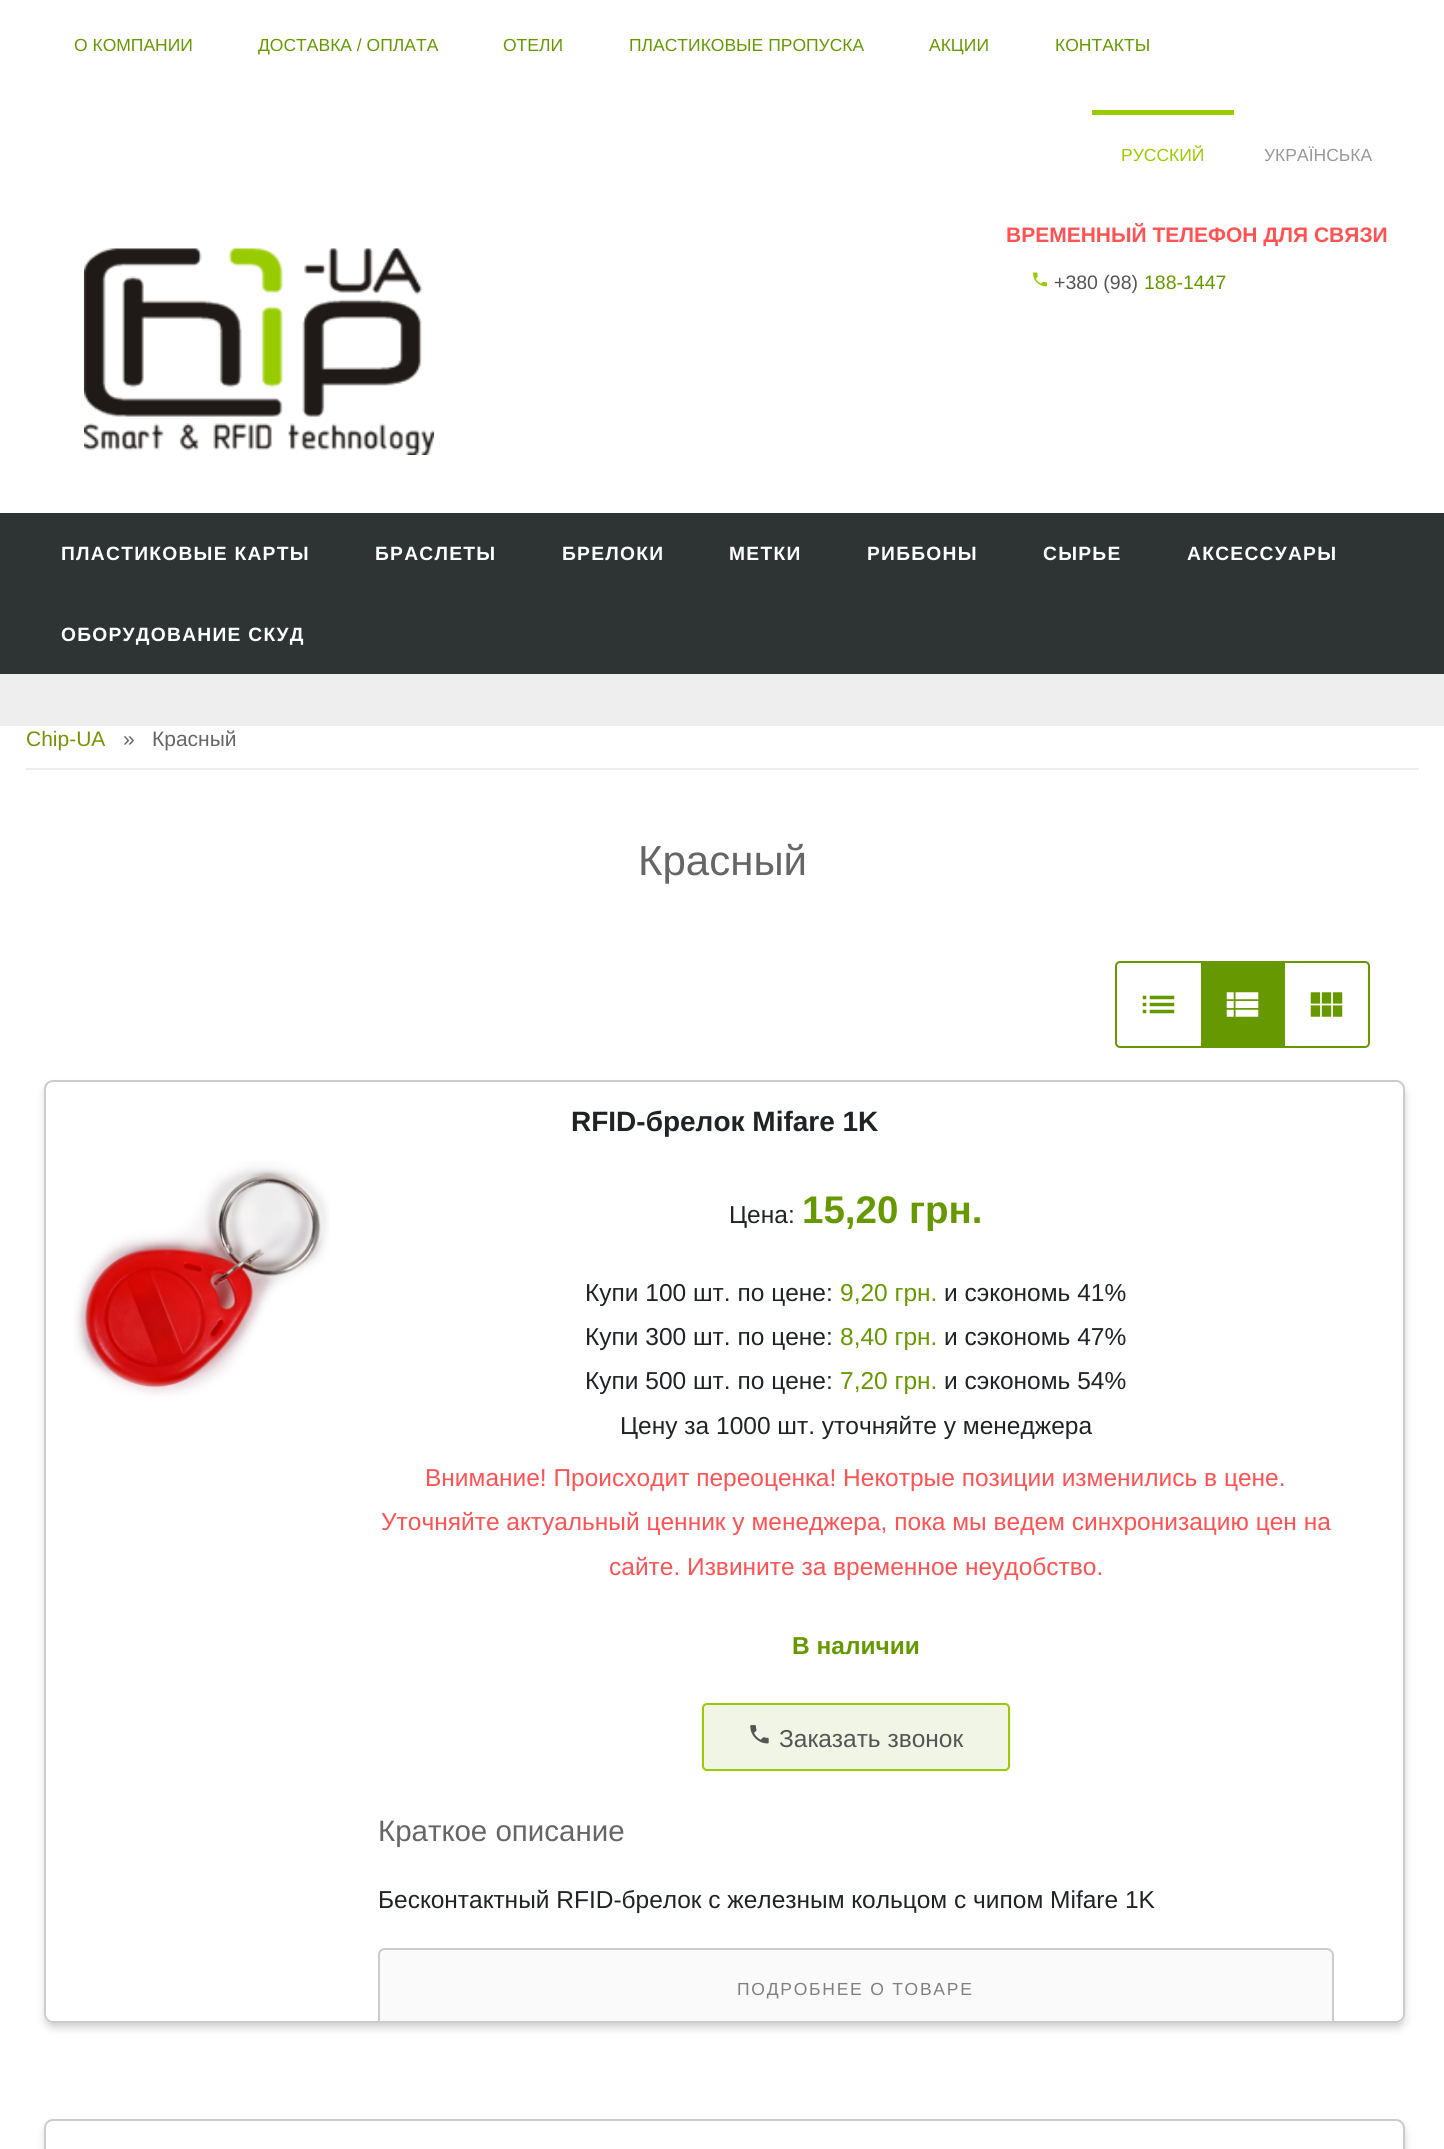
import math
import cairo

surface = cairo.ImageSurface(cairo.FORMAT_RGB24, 1444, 2149)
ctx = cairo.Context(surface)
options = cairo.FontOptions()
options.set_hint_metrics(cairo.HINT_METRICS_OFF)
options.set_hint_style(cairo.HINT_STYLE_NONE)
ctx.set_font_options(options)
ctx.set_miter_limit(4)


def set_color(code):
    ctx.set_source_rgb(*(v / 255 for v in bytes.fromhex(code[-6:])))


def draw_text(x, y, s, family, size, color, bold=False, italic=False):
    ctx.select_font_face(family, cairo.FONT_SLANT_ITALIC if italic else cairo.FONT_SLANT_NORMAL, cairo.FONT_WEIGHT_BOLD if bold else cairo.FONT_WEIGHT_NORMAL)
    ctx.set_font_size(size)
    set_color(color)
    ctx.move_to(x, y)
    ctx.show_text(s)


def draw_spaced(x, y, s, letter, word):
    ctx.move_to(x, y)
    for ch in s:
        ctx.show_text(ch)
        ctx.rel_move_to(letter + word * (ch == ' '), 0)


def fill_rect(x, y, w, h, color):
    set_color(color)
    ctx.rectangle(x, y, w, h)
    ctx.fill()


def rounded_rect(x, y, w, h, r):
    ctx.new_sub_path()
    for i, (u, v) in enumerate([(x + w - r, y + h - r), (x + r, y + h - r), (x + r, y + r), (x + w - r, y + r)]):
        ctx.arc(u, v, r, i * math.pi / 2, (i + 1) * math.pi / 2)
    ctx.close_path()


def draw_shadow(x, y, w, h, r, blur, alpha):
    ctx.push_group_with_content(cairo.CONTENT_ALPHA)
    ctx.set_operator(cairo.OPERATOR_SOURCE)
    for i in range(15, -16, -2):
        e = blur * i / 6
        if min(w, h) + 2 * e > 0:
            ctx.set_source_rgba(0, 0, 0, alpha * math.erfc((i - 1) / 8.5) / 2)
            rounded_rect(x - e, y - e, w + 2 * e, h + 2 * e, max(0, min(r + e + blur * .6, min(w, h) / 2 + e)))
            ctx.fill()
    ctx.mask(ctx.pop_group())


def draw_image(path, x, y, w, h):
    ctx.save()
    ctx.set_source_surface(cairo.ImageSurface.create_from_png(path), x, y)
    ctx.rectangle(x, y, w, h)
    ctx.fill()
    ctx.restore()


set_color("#eeeeee")
ctx.paint()
fill_rect(0, 0, 1444, 513, "#ffffff")
draw_text(74, 51, "О КОМПАНИИ", "Liberation Sans", 17.5, "#669900")
draw_text(258, 51, "ДОСТАВКА / ОПЛАТА", "Liberation Sans", 17.5, "#669900")
draw_text(503, 51, "ОТЕЛИ", "Liberation Sans", 17.5, "#669900")
draw_text(629, 51, "ПЛАСТИКОВЫЕ ПРОПУСКА", "Liberation Sans", 17.5, "#669900")
draw_text(929, 51, "АКЦИИ", "Liberation Sans", 17.5, "#669900")
draw_text(1055, 51, "КОНТАКТЫ", "Liberation Sans", 17.5, "#669900")
fill_rect(1092, 110, 142, 5, "#99cc00")
draw_text(1121, 161, "РУССКИЙ", "Liberation Sans", 17.5, "#99cc00")
draw_text(1264, 161, "УКРАЇНСЬКА", "Liberation Sans", 17.5, "#999999")
draw_image("assets/img1.png", 84, 248, 350, 207)
draw_text(1006, 242, "ВРЕМЕННЫЙ ТЕЛЕФОН ДЛЯ СВЯЗИ", "Liberation Sans", 21, "#ff5252", bold=True)
draw_image("assets/img2.png", 1033, 272, 14, 15)
draw_text(1054, 289, "+380 (98)", "Liberation Sans", 19.5, "#555555")
draw_text(1144, 289, "188-1447", "Liberation Sans", 19.5, "#669900")
fill_rect(0, 513, 1444, 161, "#2e3434")
ctx.select_font_face("Liberation Sans", cairo.FONT_SLANT_NORMAL, cairo.FONT_WEIGHT_BOLD)
ctx.set_font_size(19.25)
set_color("#ffffff")
draw_spaced(61, 560, "ПЛАСТИКОВЫЕ КАРТЫ", 1.25, 0)
draw_spaced(375, 560, "БРАСЛЕТЫ", 1.25, 0)
draw_spaced(562, 560, "БРЕЛОКИ", 1.25, 0)
draw_spaced(729, 560, "МЕТКИ", 1.25, 0)
draw_spaced(867, 560, "РИББОНЫ", 1.25, 0)
draw_spaced(1043, 560, "СЫРЬЕ", 1.25, 0)
draw_spaced(1187, 560, "АКСЕССУАРЫ", 1.25, 0)
draw_spaced(61, 641, "ОБОРУДОВАНИЕ СКУД", 1.25, 0)
fill_rect(0, 726, 1444, 1423, "#ffffff")
fill_rect(26, 768, 1393, 2, "#eeeeee")
draw_text(26, 746, "Chip-UA", "Liberation Sans", 21, "#799205")
draw_text(123, 746, "»", "Liberation Sans", 21, "#666666")
draw_text(152, 746, "Красный", "Liberation Sans", 21, "#666666")
draw_text(638, 875, "Красный", "Liberation Sans", 42, "#666666")
rounded_rect(1116, 962, 253, 85, 4)
set_color("#669900")
ctx.stroke()
draw_image("assets/img3.png", 1142, 995, 33, 19)
fill_rect(1201, 963, 84, 83, "#669900")
draw_image("assets/img4.png", 1226, 992, 33, 25)
draw_image("assets/img5.png", 1310, 992, 33, 25)
ctx.save()
ctx.set_fill_rule(cairo.FILL_RULE_EVEN_ODD)
ctx.new_path()
ctx.move_to(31, 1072)
ctx.line_to(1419, 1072)
ctx.line_to(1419, 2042)
ctx.line_to(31, 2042)
ctx.close_path()
ctx.move_to(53, 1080)
ctx.line_to(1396, 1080)
ctx.curve_to(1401, 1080, 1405, 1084, 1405, 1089)
ctx.line_to(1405, 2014)
ctx.curve_to(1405, 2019, 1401, 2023, 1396, 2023)
ctx.line_to(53, 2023)
ctx.curve_to(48, 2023, 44, 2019, 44, 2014)
ctx.line_to(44, 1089)
ctx.curve_to(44, 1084, 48, 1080, 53, 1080)
ctx.close_path()
ctx.clip()
set_color("#cccccc")
draw_shadow(46, 1087, 1358, 940, 7, 4.5, 1)
ctx.restore()
rounded_rect(45, 1081, 1359, 941, 8)
set_color("#cccccc")
ctx.stroke()
draw_text(571, 1131, "RFID-брелок Mifare 1K", "Liberation Sans", 28, "#202326", bold=True)
draw_image("assets/img6.png", 74, 1161, 256, 236)
draw_text(729, 1223, "Цена:", "Liberation Sans", 24.5, "#202326")
draw_text(802, 1223, "15,20 грн.", "Liberation Sans", 38.5, "#669900", bold=True)
draw_text(585, 1301, "Купи 100 шт. по цене:", "Liberation Sans", 24.5, "#202326")
draw_text(840, 1301, "9,20 грн.", "Liberation Sans", 24.5, "#669900")
draw_text(944, 1301, "и сэкономь 41%", "Liberation Sans", 24.5, "#202326")
draw_text(585, 1345, "Купи 300 шт. по цене:", "Liberation Sans", 24.5, "#202326")
draw_text(840, 1345, "8,40 грн.", "Liberation Sans", 24.5, "#669900")
draw_text(944, 1345, "и сэкономь 47%", "Liberation Sans", 24.5, "#202326")
draw_text(585, 1389, "Купи 500 шт. по цене:", "Liberation Sans", 24.5, "#202326")
draw_text(840, 1389, "7,20 грн.", "Liberation Sans", 24.5, "#669900")
draw_text(944, 1389, "и сэкономь 54%", "Liberation Sans", 24.5, "#202326")
draw_text(620, 1434, "Цену за 1000 шт. уточняйте у менеджера", "Liberation Sans", 24.5, "#202326")
draw_text(425, 1486, "Внимание! Происходит переоценка! Некотрые позиции изменились в цене.", "Liberation Sans", 24.5, "#ff5252")
draw_text(381, 1530, "Уточняйте актуальный ценник у менеджера, пока мы ведем синхронизацию цен на", "Liberation Sans", 24.5, "#ff5252")
draw_text(609, 1575, "сайте. Извините за временное неудобство.", "Liberation Sans", 24.5, "#ff5252")
draw_text(792, 1654, "В наличии", "Liberation Sans", 24.5, "#669900", bold=True)
set_color("#f0f5e6")
rounded_rect(703, 1704, 306, 66, 4)
ctx.fill_preserve()
set_color("#99cc00")
ctx.stroke()
draw_image("assets/img7.png", 750, 1725, 19, 19)
draw_text(779, 1747, "Заказать звонок", "Liberation Sans", 24.5, "#555555")
draw_text(378, 1841, "Краткое описание", "Liberation Sans", 29.5, "#666666")
draw_text(378, 1908, "Бесконтактный RFID-брелок с железным кольцом с чипом Mifare 1K", "Liberation Sans", 24.5, "#202326")
set_color("#fafafa")
ctx.new_path()
ctx.move_to(385, 1948)
ctx.line_to(1327, 1948)
ctx.curve_to(1331, 1948, 1334, 1951, 1334, 1955)
ctx.line_to(1334, 2021)
ctx.line_to(378, 2021)
ctx.line_to(378, 1955)
ctx.curve_to(378, 1951, 381, 1948, 385, 1948)
ctx.close_path()
ctx.fill()
set_color("#cccccc")
ctx.set_fill_rule(cairo.FILL_RULE_EVEN_ODD)
ctx.new_path()
ctx.move_to(385, 1948)
ctx.line_to(1326, 1948)
ctx.curve_to(1330, 1948, 1334, 1951, 1334, 1955)
ctx.line_to(1334, 2021)
ctx.line_to(378, 2021)
ctx.line_to(378, 1955)
ctx.curve_to(378, 1951, 381, 1948, 385, 1948)
ctx.close_path()
ctx.move_to(385, 1950)
ctx.line_to(1326, 1950)
ctx.curve_to(1329, 1950, 1332, 1952, 1332, 1955)
ctx.line_to(1332, 2021)
ctx.line_to(380, 2021)
ctx.line_to(380, 1955)
ctx.curve_to(380, 1952, 382, 1950, 385, 1950)
ctx.close_path()
ctx.fill()
ctx.set_font_size(17.5)
set_color("#808080")
draw_spaced(737, 1995, "ПОДРОБНЕЕ О ТОВАРЕ", 1.75, 0)
ctx.save()
ctx.new_path()
ctx.move_to(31, 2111)
ctx.line_to(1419, 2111)
ctx.line_to(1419, 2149)
ctx.line_to(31, 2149)
ctx.close_path()
ctx.move_to(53, 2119)
ctx.line_to(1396, 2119)
ctx.curve_to(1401, 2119, 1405, 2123, 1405, 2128)
ctx.line_to(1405, 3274)
ctx.curve_to(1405, 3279, 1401, 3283, 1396, 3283)
ctx.line_to(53, 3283)
ctx.curve_to(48, 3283, 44, 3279, 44, 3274)
ctx.line_to(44, 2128)
ctx.curve_to(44, 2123, 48, 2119, 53, 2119)
ctx.close_path()
ctx.clip()
set_color("#cccccc")
draw_shadow(46, 2126, 1358, 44, 7, 4.5, 1)
ctx.restore()
rounded_rect(45, 2120, 1359, 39, 8)
set_color("#cccccc")
ctx.stroke()
surface.write_to_png("output.png")
